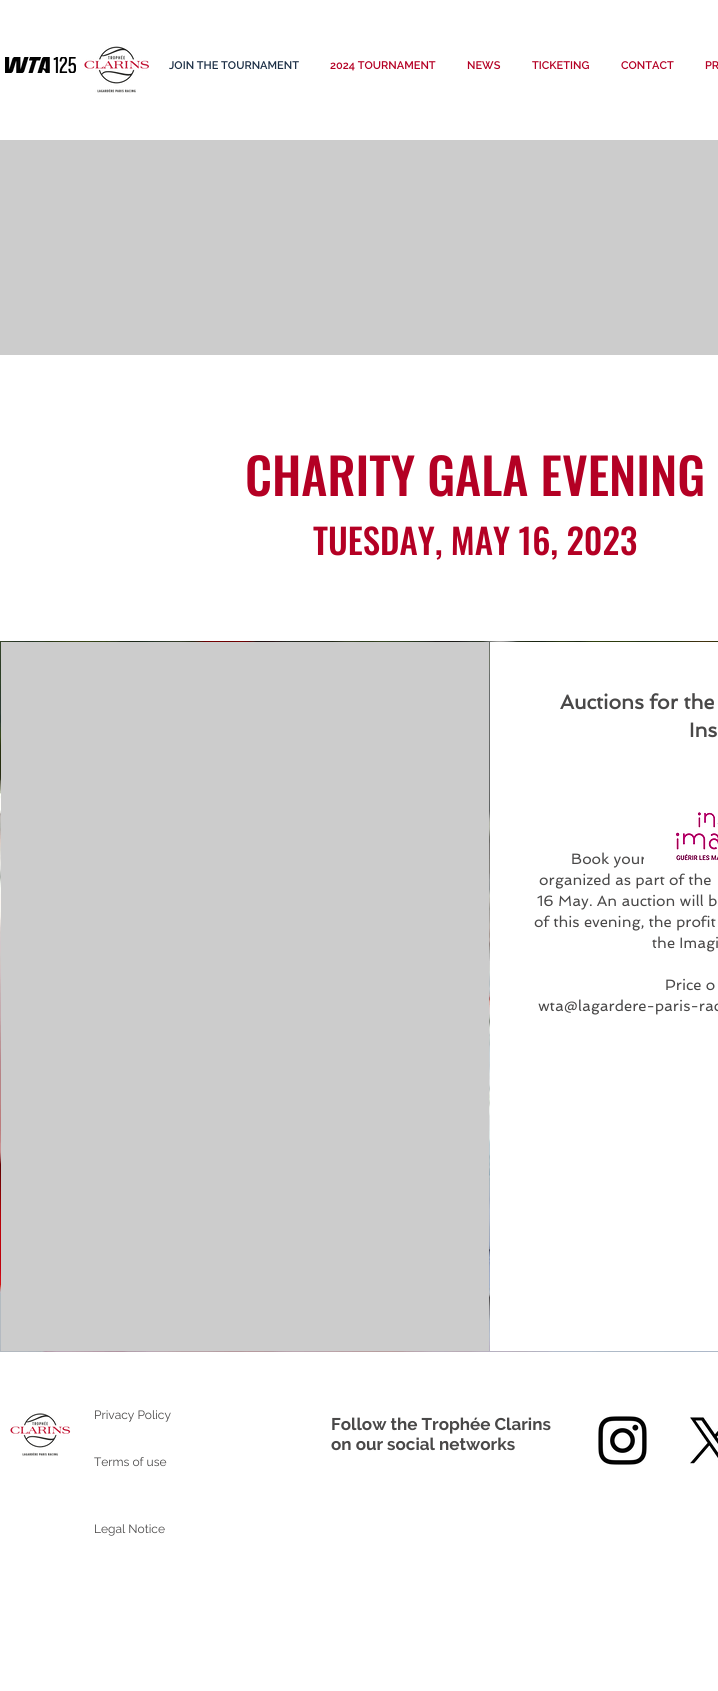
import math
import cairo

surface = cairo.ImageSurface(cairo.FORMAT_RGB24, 718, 1691)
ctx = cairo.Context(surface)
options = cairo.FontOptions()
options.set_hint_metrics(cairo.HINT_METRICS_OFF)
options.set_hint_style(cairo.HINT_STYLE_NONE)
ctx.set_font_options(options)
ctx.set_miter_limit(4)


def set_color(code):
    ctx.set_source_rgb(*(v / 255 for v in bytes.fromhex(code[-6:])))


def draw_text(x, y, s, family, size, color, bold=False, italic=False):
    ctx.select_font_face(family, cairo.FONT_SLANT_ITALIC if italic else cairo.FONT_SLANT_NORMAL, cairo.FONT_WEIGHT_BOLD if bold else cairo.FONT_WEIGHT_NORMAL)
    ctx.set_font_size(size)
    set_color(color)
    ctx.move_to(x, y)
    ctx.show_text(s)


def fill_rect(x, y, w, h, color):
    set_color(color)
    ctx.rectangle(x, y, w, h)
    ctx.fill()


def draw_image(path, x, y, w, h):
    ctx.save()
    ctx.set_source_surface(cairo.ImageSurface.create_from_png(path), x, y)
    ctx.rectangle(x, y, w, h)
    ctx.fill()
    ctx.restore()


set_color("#ffffff")
ctx.paint()
draw_image("assets/img1.png", 5, 57, 71, 16)
draw_image("assets/img2.png", 84, 46, 65, 47)
draw_text(169, 69, "JOIN THE TOURNAMENT", "Raleway SemiBold", 11, "#1c2f46")
draw_text(330, 69, "2024 TOURNAMENT", "Raleway SemiBold", 11, "#b40024")
draw_text(467, 69, "NEWS", "Raleway SemiBold", 11, "#b40024")
draw_text(532, 69, "TICKETING", "Raleway SemiBold", 11, "#b40024")
draw_text(621, 69, "CONTACT", "Raleway SemiBold", 11, "#b40024")
draw_text(705, 69, "PR", "Raleway SemiBold", 11, "#b40024")
fill_rect(0, 140, 718, 215, "#cccccc")
draw_text(245, 496, "CHARITY GALA EVENING", "Oswald Medium", 50, "#b40024")
draw_text(313, 555, "TUESDAY, MAY 16, 2023", "Oswald Medium", 35, "#b40024")
draw_image("assets/img3.png", 0, 641, 718, 711)
fill_rect(1, 642, 488, 709, "#cccccc")
fill_rect(490, 642, 228, 709, "#ffffff")
draw_text(560, 709, "Auctions for the", "Spinnaker", 20, "#494848", bold=True)
draw_text(689, 737, "Ins", "Spinnaker", 20, "#494848", bold=True)
draw_text(571, 864, "Book your", "Spinnaker", 15, "#494848")
draw_text(539, 885, "organized as part of the", "Spinnaker", 15, "#494848")
draw_text(537, 906, "16 May. An auction will b", "Spinnaker", 15, "#494848")
draw_text(534, 927, "of this evening, the profit", "Spinnaker", 15, "#494848")
draw_text(652, 948, "the Imagi", "Spinnaker", 15, "#494848")
draw_text(665, 990, "Price o", "Spinnaker", 15, "#494848")
draw_text(538, 1011, "wta@lagardere-paris-rac", "Spinnaker", 15, "#494848")
draw_image("assets/img4.png", 644, 812, 74, 53)
draw_image("assets/img5.png", 10, 1413, 61, 43)
draw_text(94, 1419, "Privacy Policy", "Raleway", 12, "#494848")
draw_text(331, 1430, "Follow the Trophée Clarins", "Raleway", 17, "#494848", bold=True)
draw_text(331, 1450, "on our social networks", "Raleway", 17, "#494848", bold=True)
draw_image("assets/img6.png", 598, 1416, 49, 49)
draw_image("assets/img7.png", 690, 1417, 28, 47)
draw_text(94, 1466, "Terms of use", "Raleway", 12, "#494848")
draw_text(94, 1533, "Legal Notice", "Raleway", 12, "#494848")
surface.write_to_png("output.png")
